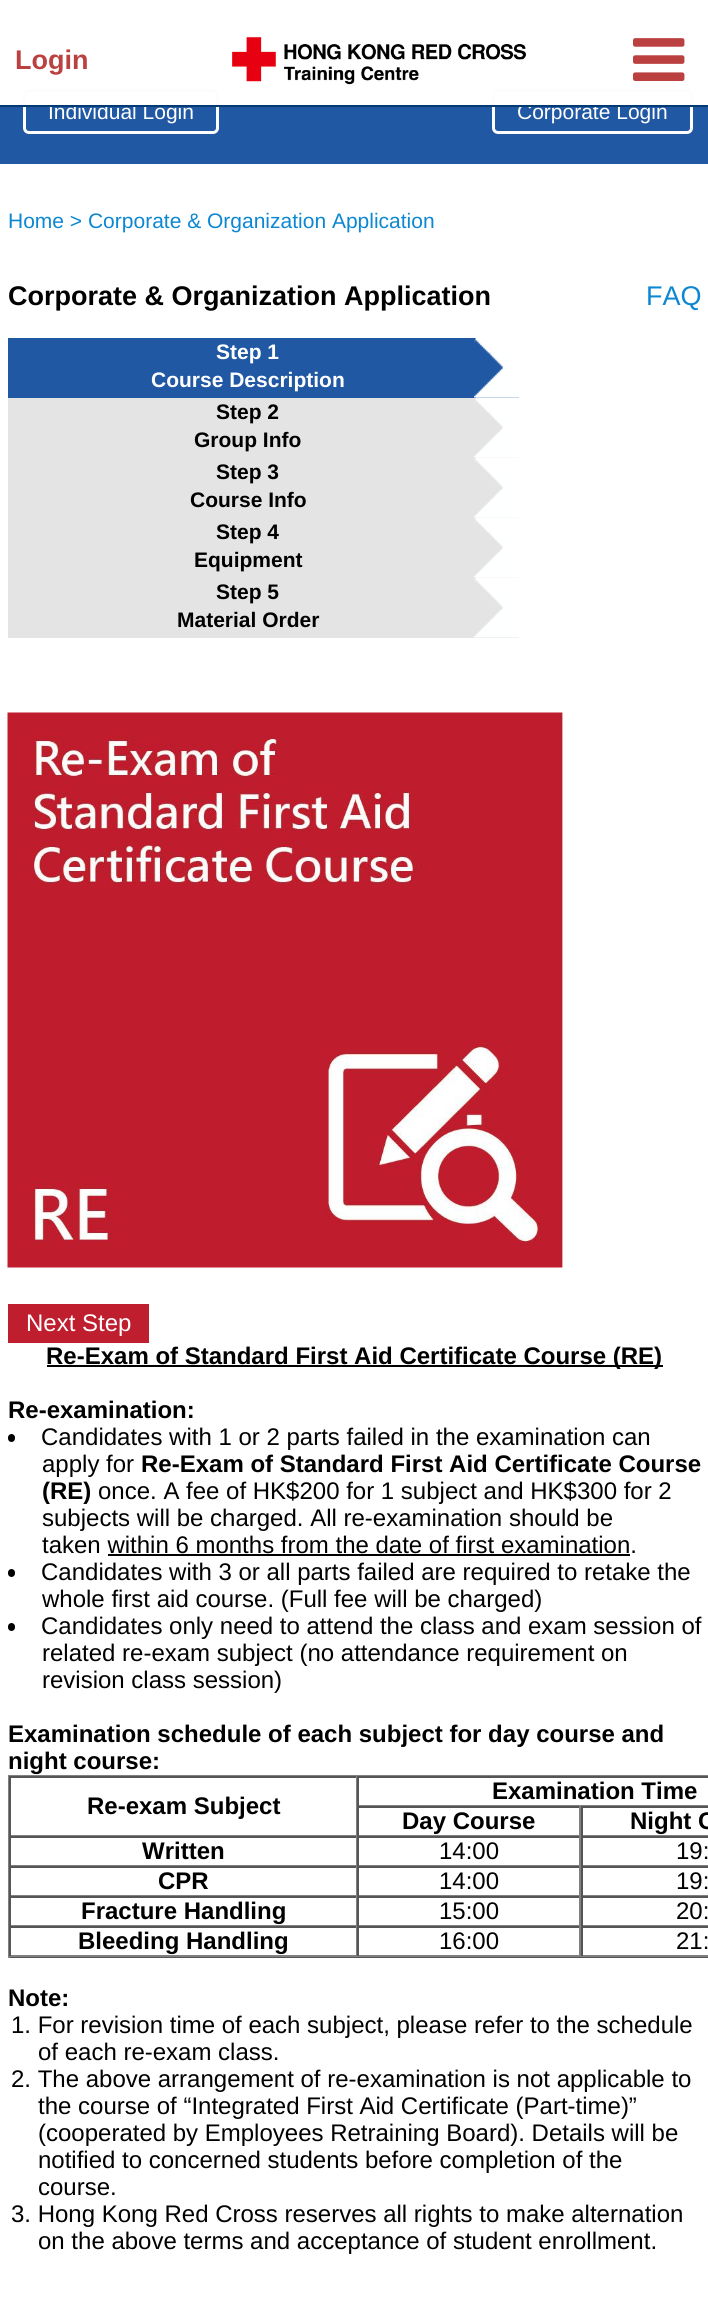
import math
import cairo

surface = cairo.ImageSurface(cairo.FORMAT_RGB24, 708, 2299)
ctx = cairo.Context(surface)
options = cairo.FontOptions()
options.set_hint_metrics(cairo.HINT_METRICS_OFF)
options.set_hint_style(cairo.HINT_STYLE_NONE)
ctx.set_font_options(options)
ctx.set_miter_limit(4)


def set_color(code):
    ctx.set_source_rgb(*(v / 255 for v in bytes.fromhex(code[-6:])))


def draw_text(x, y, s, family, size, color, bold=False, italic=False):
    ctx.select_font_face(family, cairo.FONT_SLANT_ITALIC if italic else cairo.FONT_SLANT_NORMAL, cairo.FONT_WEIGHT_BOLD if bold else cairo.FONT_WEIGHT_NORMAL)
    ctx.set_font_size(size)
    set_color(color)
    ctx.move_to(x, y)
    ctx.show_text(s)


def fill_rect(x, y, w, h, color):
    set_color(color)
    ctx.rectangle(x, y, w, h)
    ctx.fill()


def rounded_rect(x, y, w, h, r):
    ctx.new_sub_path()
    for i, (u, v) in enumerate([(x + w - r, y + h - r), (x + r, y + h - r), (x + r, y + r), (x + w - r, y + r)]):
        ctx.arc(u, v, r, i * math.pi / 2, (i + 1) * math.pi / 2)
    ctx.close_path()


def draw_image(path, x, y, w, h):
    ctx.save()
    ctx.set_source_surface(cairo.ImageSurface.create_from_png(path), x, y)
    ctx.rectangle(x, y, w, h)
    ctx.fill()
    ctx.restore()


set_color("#ffffff")
ctx.paint()
fill_rect(0, 107, 708, 57, "#2158a3")
rounded_rect(24.5, 90.5, 193, 42, 4.5)
set_color("#fdfdfe")
ctx.set_line_width(3)
ctx.stroke()
draw_text(48, 119, "Individual Login", "Liberation Sans", 21, "#ffffff")
rounded_rect(493.5, 90.5, 198, 42, 4.5)
set_color("#fdfdfe")
ctx.stroke()
draw_text(517, 119, "Corporate Login", "Liberation Sans", 21, "#ffffff")
fill_rect(0, 105, 708, 2, "#003b73")
draw_text(15, 69, "Login", "Liberation Sans", 27, "#bb4141", bold=True)
draw_image("assets/img1.png", 232, 36, 295, 49)
draw_image("assets/img2.png", 633, 38, 52, 43)
draw_text(8, 228, "Home > Corporate & Organization Application", "Liberation Sans", 21, "#0c87d1")
draw_text(8, 305, "Corporate & Organization Application", "Liberation Sans", 27, "#000000", bold=True)
draw_text(646, 305, "FAQ", "Liberation Sans", 27, "#0c87d1")
fill_rect(8, 338, 511, 60, "#2158a3")
draw_image("assets/img3.png", 474, 338, 45, 60)
draw_text(216, 359, "Step 1", "Liberation Sans", 21, "#ffffff", bold=True)
draw_text(151, 387, "Course Description", "Liberation Sans", 21, "#ffffff", bold=True)
fill_rect(8, 398, 511, 240, "#e4e4e4")
draw_image("assets/img4.png", 474, 397, 45, 61)
draw_text(216, 419, "Step 2", "Liberation Sans", 21, "#000000", bold=True)
draw_text(194, 447, "Group Info", "Liberation Sans", 21, "#000000", bold=True)
draw_image("assets/img5.png", 474, 457, 45, 61)
draw_text(216, 479, "Step 3", "Liberation Sans", 21, "#000000", bold=True)
draw_text(190, 507, "Course Info", "Liberation Sans", 21, "#000000", bold=True)
draw_image("assets/img5.png", 474, 517, 45, 61)
draw_text(216, 539, "Step 4", "Liberation Sans", 21, "#000000", bold=True)
draw_text(194, 567, "Equipment", "Liberation Sans", 21, "#000000", bold=True)
draw_image("assets/img5.png", 474, 577, 45, 61)
draw_text(216, 599, "Step 5", "Liberation Sans", 21, "#000000", bold=True)
draw_text(177, 627, "Material Order", "Liberation Sans", 21, "#000000", bold=True)
draw_image("assets/img6.png", 7, 712, 556, 556)
fill_rect(8, 1304, 141, 39, "#bf1e2e")
draw_text(26, 1331, "Next Step", "Liberation Sans", 24, "#ffffff")
fill_rect(47, 1365, 616, 2, "#000000")
draw_text(46, 1364, "Re-Exam of Standard First Aid Certificate Course (RE)", "Liberation Sans", 24, "#000000", bold=True)
draw_text(8, 1418, "Re-examination:", "Liberation Sans", 24, "#000000", bold=True)
rounded_rect(8, 1434, 7, 8, 3.5)
ctx.fill()
draw_text(41, 1445, "Candidates with 1 or 2 parts failed in the examination can", "Liberation Sans", 24, "#000000")
draw_text(42, 1472, "apply for", "Liberation Sans", 24, "#000000")
draw_text(141, 1472, "Re-Exam of Standard First Aid Certificate Course", "Liberation Sans", 24, "#000000", bold=True)
draw_text(42, 1499, "(RE)", "Liberation Sans", 24, "#000000", bold=True)
draw_text(98, 1499, "once. A fee of HK$200 for 1 subject and HK$300 for 2", "Liberation Sans", 24, "#000000")
draw_text(42, 1526, "subjects will be charged. All re-examination should be", "Liberation Sans", 24, "#000000")
draw_text(42, 1553, "taken within 6 months from the date of first examination.", "Liberation Sans", 24, "#000000")
fill_rect(108, 1554, 522, 2, "#000000")
rounded_rect(8, 1569, 7, 8, 3.5)
ctx.fill()
draw_text(41, 1580, "Candidates with 3 or all parts failed are required to retake the", "Liberation Sans", 24, "#000000")
draw_text(42, 1607, "whole first aid course. (Full fee will be charged)", "Liberation Sans", 24, "#000000")
rounded_rect(8, 1623, 7, 8, 3.5)
ctx.fill()
draw_text(41, 1634, "Candidates only need to attend the class and exam session of", "Liberation Sans", 24, "#000000")
draw_text(42, 1661, "related re-exam subject (no attendance requirement on", "Liberation Sans", 24, "#000000")
draw_text(42, 1688, "revision class session)", "Liberation Sans", 24, "#000000")
draw_text(8, 1742, "Examination schedule of each subject for day course and", "Liberation Sans", 24, "#000000", bold=True)
draw_text(8, 1769, "night course:", "Liberation Sans", 24, "#000000", bold=True)
fill_rect(8, 1775, 700, 1, "#808080")
fill_rect(8, 1957, 700, 1, "#555555")
fill_rect(8, 1775, 2, 183, "#808080")
fill_rect(357, 1805, 351, 1, "#808080")
fill_rect(9, 1776, 699, 2, "#555555")
fill_rect(357, 1776, 2, 30, "#555555")
draw_text(492, 1799, "Examination Time", "Liberation Sans", 24, "#000000", bold=True)
fill_rect(356, 1776, 1, 60, "#808080")
fill_rect(9, 1835, 348, 1, "#808080")
fill_rect(9, 1776, 2, 60, "#555555")
draw_text(87, 1814, "Re-exam Subject", "Liberation Sans", 24, "#000000", bold=True)
fill_rect(357, 1806, 351, 2, "#555555")
fill_rect(579, 1806, 2, 30, "#808080")
fill_rect(357, 1835, 351, 1, "#808080")
fill_rect(357, 1806, 2, 30, "#555555")
draw_text(402, 1829, "Day Course", "Liberation Sans", 24, "#000000", bold=True)
fill_rect(581, 1806, 2, 30, "#555555")
draw_text(630, 1829, "Night C", "Liberation Sans", 24, "#000000", bold=True)
fill_rect(9, 1836, 699, 2, "#555555")
fill_rect(356, 1836, 1, 30, "#808080")
fill_rect(9, 1865, 348, 1, "#808080")
fill_rect(9, 1836, 2, 30, "#555555")
draw_text(142, 1859, "Written", "Liberation Sans", 24, "#000000", bold=True)
fill_rect(579, 1836, 2, 30, "#808080")
fill_rect(357, 1865, 351, 1, "#808080")
fill_rect(357, 1836, 2, 30, "#555555")
draw_text(439, 1859, "14:00", "Liberation Sans", 24, "#000000")
fill_rect(581, 1836, 2, 30, "#555555")
draw_text(676, 1859, "19:", "Liberation Sans", 24, "#000000")
fill_rect(9, 1866, 699, 2, "#555555")
fill_rect(356, 1866, 1, 30, "#808080")
fill_rect(9, 1895, 348, 1, "#808080")
fill_rect(9, 1866, 2, 30, "#555555")
draw_text(158, 1889, "CPR", "Liberation Sans", 24, "#000000", bold=True)
fill_rect(579, 1866, 2, 30, "#808080")
fill_rect(357, 1895, 351, 1, "#808080")
fill_rect(357, 1866, 2, 30, "#555555")
draw_text(439, 1889, "14:00", "Liberation Sans", 24, "#000000")
fill_rect(581, 1866, 2, 30, "#555555")
draw_text(676, 1889, "19:", "Liberation Sans", 24, "#000000")
fill_rect(9, 1896, 699, 2, "#555555")
fill_rect(356, 1896, 1, 30, "#808080")
fill_rect(9, 1925, 348, 1, "#808080")
fill_rect(9, 1896, 2, 30, "#555555")
draw_text(81, 1919, "Fracture Handling", "Liberation Sans", 24, "#000000", bold=True)
fill_rect(579, 1896, 2, 30, "#808080")
fill_rect(357, 1925, 351, 1, "#808080")
fill_rect(357, 1896, 2, 30, "#555555")
draw_text(439, 1919, "15:00", "Liberation Sans", 24, "#000000")
fill_rect(581, 1896, 2, 30, "#555555")
draw_text(676, 1919, "20:", "Liberation Sans", 24, "#000000")
fill_rect(9, 1926, 699, 2, "#555555")
fill_rect(356, 1926, 1, 30, "#808080")
fill_rect(9, 1955, 348, 2, "#808080")
fill_rect(9, 1926, 2, 30, "#555555")
draw_text(78, 1949, "Bleeding Handling", "Liberation Sans", 24, "#000000", bold=True)
fill_rect(579, 1926, 2, 30, "#808080")
fill_rect(357, 1955, 351, 2, "#808080")
fill_rect(357, 1926, 2, 30, "#555555")
draw_text(439, 1949, "16:00", "Liberation Sans", 24, "#000000")
fill_rect(581, 1926, 2, 30, "#555555")
draw_text(676, 1949, "21:", "Liberation Sans", 24, "#000000")
draw_text(8, 2006, "Note:", "Liberation Sans", 24, "#000000", bold=True)
draw_text(11, 2033, "1. For revision time of each subject, please refer to the schedule", "Liberation Sans", 24, "#000000")
draw_text(38, 2060, "of each re-exam class.", "Liberation Sans", 24, "#000000")
draw_text(11, 2087, "2. The above arrangement of re-examination is not applicable to", "Liberation Sans", 24, "#000000")
draw_text(38, 2114, "the course of “Integrated First Aid Certificate (Part-time)”", "Liberation Sans", 24, "#000000")
draw_text(38, 2141, "(cooperated by Employees Retraining Board). Details will be", "Liberation Sans", 24, "#000000")
draw_text(38, 2168, "notified to concerned students before completion of the", "Liberation Sans", 24, "#000000")
draw_text(38, 2195, "course.", "Liberation Sans", 24, "#000000")
draw_text(11, 2222, "3. Hong Kong Red Cross reserves all rights to make alternation", "Liberation Sans", 24, "#000000")
draw_text(38, 2249, "on the above terms and acceptance of student enrollment.", "Liberation Sans", 24, "#000000")
surface.write_to_png("output.png")
